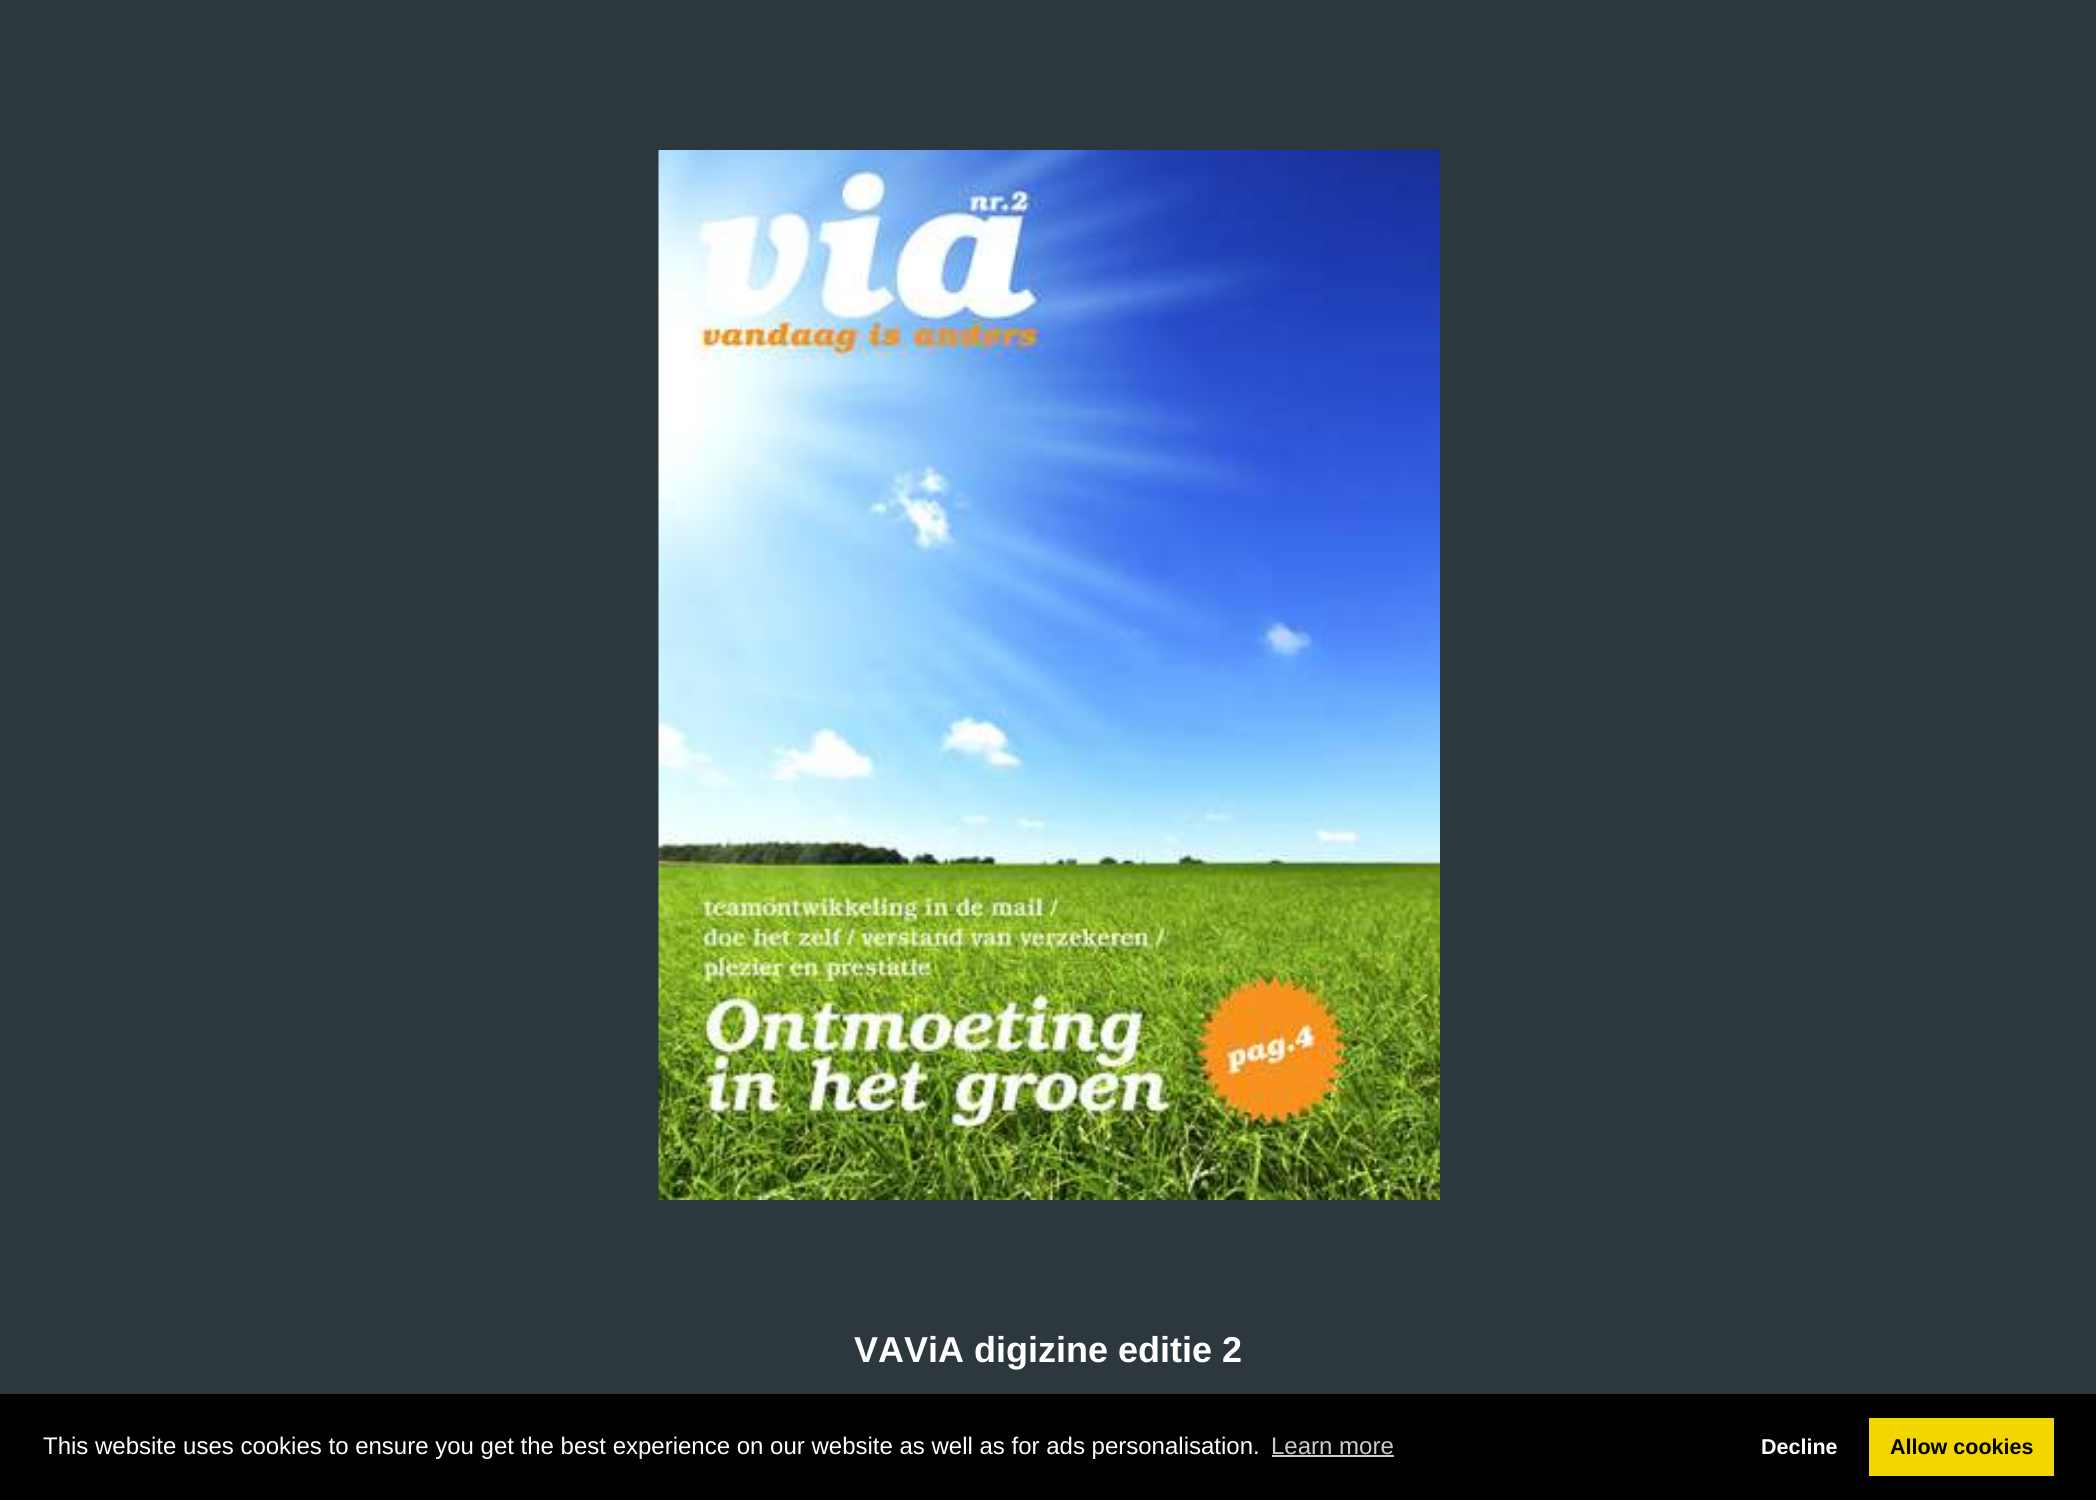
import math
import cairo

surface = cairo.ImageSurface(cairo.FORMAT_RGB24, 2096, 1500)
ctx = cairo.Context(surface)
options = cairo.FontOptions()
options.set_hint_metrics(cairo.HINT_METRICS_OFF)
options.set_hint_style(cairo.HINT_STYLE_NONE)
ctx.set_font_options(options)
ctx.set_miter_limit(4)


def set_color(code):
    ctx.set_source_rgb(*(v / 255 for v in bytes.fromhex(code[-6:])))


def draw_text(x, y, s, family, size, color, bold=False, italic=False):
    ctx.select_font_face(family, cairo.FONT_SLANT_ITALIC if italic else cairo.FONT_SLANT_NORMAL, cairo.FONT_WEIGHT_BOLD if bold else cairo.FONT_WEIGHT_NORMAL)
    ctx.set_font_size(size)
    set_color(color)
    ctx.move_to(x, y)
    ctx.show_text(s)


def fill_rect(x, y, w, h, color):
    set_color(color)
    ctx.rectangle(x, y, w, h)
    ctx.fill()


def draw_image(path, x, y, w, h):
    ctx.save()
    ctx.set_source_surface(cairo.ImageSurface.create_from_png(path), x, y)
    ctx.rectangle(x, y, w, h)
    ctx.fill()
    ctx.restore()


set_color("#2d373e")
ctx.paint()
draw_image("assets/img1.png", 658, 150, 782, 1050)
draw_text(854, 1362, "VAViA digizine editie 2", "Liberation Sans", 36, "#ffffff", bold=True)
fill_rect(0, 1394, 2096, 106, "#000000")
draw_text(43, 1454, "This website uses cookies to ensure you get the best experience on our website as well as for ads personalisation.", "Liberation Sans", 24, "#ffffff")
draw_text(1271, 1454, "Learn more", "Liberation Sans", 24, "#cccccc")
fill_rect(1272, 1455, 122, 2, "#cccccc")
draw_text(1761, 1454, "Decline", "Liberation Sans", 21.5, "#ffffff", bold=True)
fill_rect(1869, 1418, 185, 58, "#f1d600")
draw_text(1890, 1454, "Allow cookies", "Liberation Sans", 21.5, "#000000", bold=True)
surface.write_to_png("output.png")
